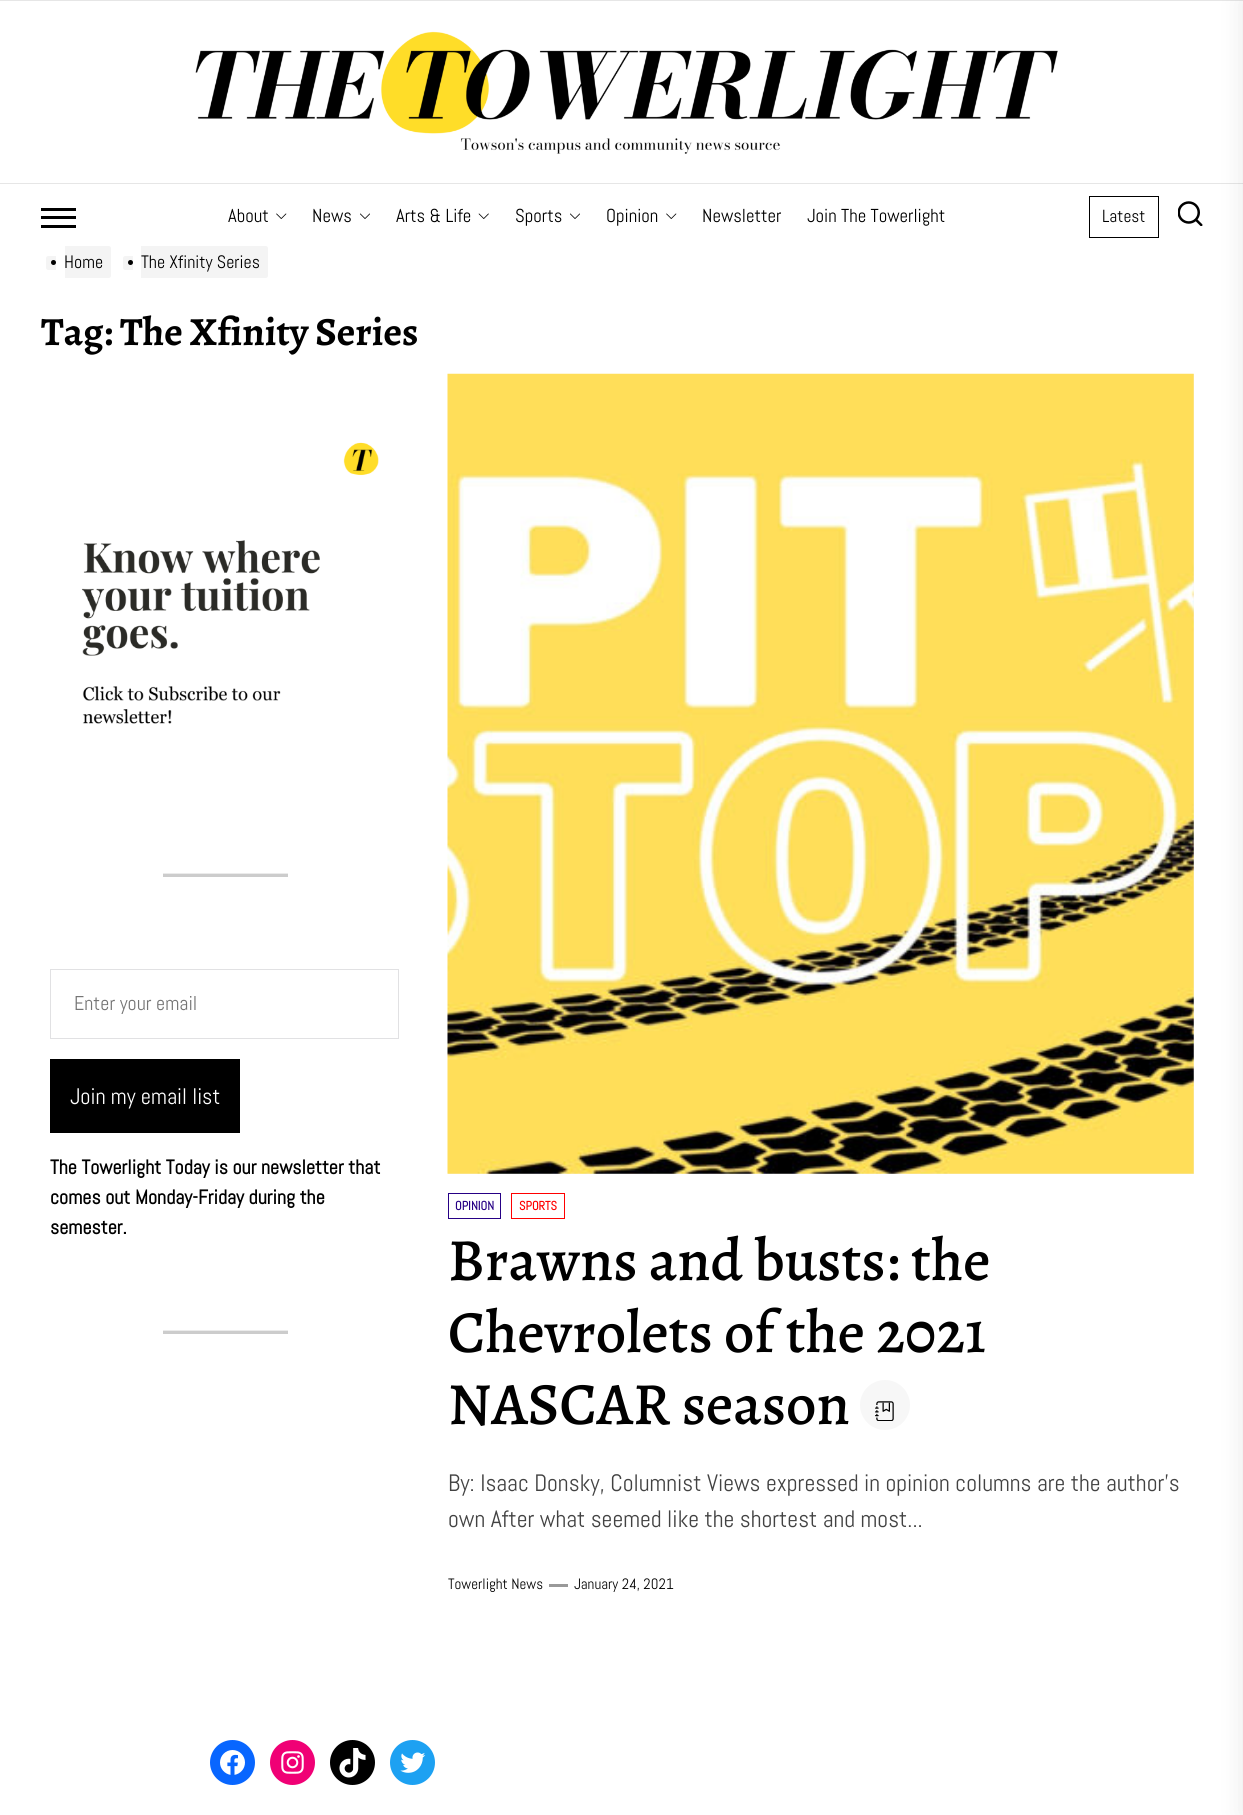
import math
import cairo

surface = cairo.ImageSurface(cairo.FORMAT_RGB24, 1243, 1815)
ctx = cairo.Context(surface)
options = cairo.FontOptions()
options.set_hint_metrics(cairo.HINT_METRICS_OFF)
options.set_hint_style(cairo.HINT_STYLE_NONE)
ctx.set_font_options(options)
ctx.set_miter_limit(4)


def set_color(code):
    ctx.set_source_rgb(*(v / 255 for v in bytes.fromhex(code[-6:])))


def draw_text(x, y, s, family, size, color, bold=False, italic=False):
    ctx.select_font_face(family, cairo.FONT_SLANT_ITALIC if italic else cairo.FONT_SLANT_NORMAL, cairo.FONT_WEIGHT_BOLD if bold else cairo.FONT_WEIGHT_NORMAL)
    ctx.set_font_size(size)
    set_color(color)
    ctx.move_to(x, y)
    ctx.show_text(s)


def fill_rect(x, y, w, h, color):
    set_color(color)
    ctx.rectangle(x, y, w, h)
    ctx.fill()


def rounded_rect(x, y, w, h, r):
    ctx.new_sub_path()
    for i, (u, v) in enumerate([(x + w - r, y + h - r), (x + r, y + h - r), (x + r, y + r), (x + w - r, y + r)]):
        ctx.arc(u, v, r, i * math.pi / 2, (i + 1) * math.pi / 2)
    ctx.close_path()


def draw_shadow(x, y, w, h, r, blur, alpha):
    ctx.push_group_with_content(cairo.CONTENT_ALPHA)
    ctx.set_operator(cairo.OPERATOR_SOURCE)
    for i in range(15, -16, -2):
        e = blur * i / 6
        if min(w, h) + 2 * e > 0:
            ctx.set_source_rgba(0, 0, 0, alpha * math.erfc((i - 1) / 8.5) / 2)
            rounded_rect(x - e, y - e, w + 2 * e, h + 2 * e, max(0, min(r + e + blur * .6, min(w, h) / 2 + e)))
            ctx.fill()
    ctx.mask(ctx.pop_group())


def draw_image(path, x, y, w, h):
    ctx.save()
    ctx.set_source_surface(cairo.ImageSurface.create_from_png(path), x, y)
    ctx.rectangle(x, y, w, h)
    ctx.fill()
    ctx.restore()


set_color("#ffffff")
ctx.paint()
fill_rect(0, 0, 1243, 1, "#e6e6e6")
fill_rect(0, 183, 1243, 1, "#e6e6e6")
draw_image("assets/img1.png", 195, 31, 863, 123)
fill_rect(41, 216, 35, 3, "#000000")
fill_rect(41, 208, 35, 3, "#000000")
fill_rect(41, 225, 35, 3, "#000000")
draw_text(228, 222, "About", "Abel", 18.75, "#000000")
draw_image("assets/img2.png", 276, 213, 11, 6)
draw_text(312, 222, "News", "Abel", 18.75, "#000000")
draw_image("assets/img3.png", 360, 213, 10, 6)
draw_text(396, 222, "Arts & Life", "Abel", 18.75, "#000000")
draw_image("assets/img4.png", 478, 213, 11, 6)
draw_text(515, 222, "Sports", "Abel", 18.75, "#000000")
draw_image("assets/img3.png", 570, 213, 10, 6)
draw_text(606, 222, "Opinion", "Abel", 18.75, "#000000")
draw_image("assets/img2.png", 666, 213, 11, 6)
draw_text(702, 222, "Newsletter", "Abel", 18.75, "#000000")
draw_text(807, 222, "Join The Towerlight", "Abel", 18.75, "#000000")
ctx.rectangle(1089.5, 196.5, 69, 41)
ctx.set_line_width(1)
ctx.stroke()
draw_text(1102, 222, "Latest", "Abel", 17.5, "#000000")
draw_image("assets/img5.png", 1178, 201, 25, 25)
set_color("#000000")
draw_shadow(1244, 0, 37, 1815, 0, 12.5, 0.1)
set_color("#f4f4f4")
ctx.new_path()
ctx.move_to(48.5, 256)
ctx.line_to(56, 256)
ctx.line_to(56, 270)
ctx.line_to(48.5, 270)
ctx.curve_to(47, 270, 46, 269, 46, 267.5)
ctx.line_to(46, 258.5)
ctx.curve_to(46, 257, 47, 256, 48.5, 256)
ctx.close_path()
ctx.fill()
ctx.new_path()
ctx.move_to(65, 246)
ctx.line_to(108.5, 246)
ctx.curve_to(110, 246, 111, 247, 111, 248.5)
ctx.line_to(111, 275.5)
ctx.curve_to(111, 277, 110, 278, 108.5, 278)
ctx.line_to(65, 278)
ctx.close_path()
ctx.fill()
set_color("#000000")
ctx.arc(53.5, 262.5, 2.5, 0, 2 * math.pi)
ctx.fill()
draw_text(64, 268, "Home", "Abel", 18, "#000000")
set_color("#f4f4f4")
ctx.new_path()
ctx.move_to(125.5, 256)
ctx.line_to(133, 256)
ctx.line_to(133, 270)
ctx.line_to(125.5, 270)
ctx.curve_to(124, 270, 123, 269, 123, 267.5)
ctx.line_to(123, 258.5)
ctx.curve_to(123, 257, 124, 256, 125.5, 256)
ctx.close_path()
ctx.fill()
ctx.new_path()
ctx.move_to(141, 246)
ctx.line_to(265.5, 246)
ctx.curve_to(267, 246, 268, 247, 268, 248.5)
ctx.line_to(268, 275.5)
ctx.curve_to(268, 277, 267, 278, 265.5, 278)
ctx.line_to(141, 278)
ctx.close_path()
ctx.fill()
set_color("#000000")
ctx.arc(130.5, 262.5, 2.5, 0, 2 * math.pi)
ctx.fill()
draw_text(141, 268, "The Xfinity Series", "Abel", 18, "#000000")
draw_text(41, 345, "Tag: The Xfinity Series", "Alegreya", 40, "#000000", bold=True)
draw_image("assets/img6.png", 81, 442, 298, 282)
fill_rect(163, 873, 125, 1, "#ebebeb")
fill_rect(163, 874, 125, 3, "#cccccc")
ctx.rectangle(50.5, 969.5, 348, 69)
set_color("#e1e1e3")
ctx.stroke()
draw_text(74, 1010, "Enter your email", "Abel", 20, "#757575")
fill_rect(50, 1059, 190, 74, "#000000")
draw_text(70, 1104, "Join my email list", "Abel", 22.5, "#ffffff")
draw_text(50, 1174, "The Towerlight Today is our newsletter that", "Abel", 20, "#000000", bold=True)
draw_text(50, 1204, "comes out Monday-Friday during the", "Abel", 20, "#000000", bold=True)
draw_text(50, 1234, "semester.", "Abel", 20, "#000000", bold=True)
fill_rect(163, 1330, 125, 1, "#ebebeb")
fill_rect(163, 1331, 125, 3, "#cccccc")
fill_rect(448, 374, 746, 800, "#f1f1f1")
draw_image("assets/img7.png", 447, 373, 747, 801)
ctx.rectangle(448.5, 1193.5, 52, 25)
set_color("#260085")
ctx.stroke()
draw_text(455, 1210, "OPINION", "Abel", 12.5, "#260085", bold=True)
ctx.rectangle(511.5, 1193.5, 53, 25)
set_color("#ff0000")
ctx.stroke()
draw_text(519, 1210, "SPORTS", "Abel", 12.5, "#ff0000", bold=True)
draw_text(448, 1280, "Brawns and busts: the", "Alegreya Medium", 60, "#000000")
draw_text(448, 1352, "Chevrolets of the 2021", "Alegreya Medium", 60, "#000000")
draw_text(448, 1424, "NASCAR season", "Alegreya Medium", 60, "#000000")
set_color("#f7f7f7")
ctx.new_path()
ctx.arc(885, 1405, 25, 0, 2 * math.pi)
ctx.fill()
draw_image("assets/img8.png", 875, 1401, 19, 20)
draw_text(448, 1491, "By: Isaac Donsky, Columnist Views expressed in opinion columns are the author’s", "Abel", 23.75, "#424242")
draw_text(448, 1527, "own After what seemed like the shortest and most...", "Abel", 23.75, "#424242")
draw_text(448, 1589, "Towerlight News", "Abel", 15, "#000000")
fill_rect(549, 1584, 19, 3, "#999999")
draw_text(574, 1589, "January 24, 2021", "Abel", 15, "#000000")
set_color("#0866ff")
ctx.new_path()
ctx.arc(232.5, 1762.5, 22.5, 0, 2 * math.pi)
ctx.fill()
draw_image("assets/img9.png", 220, 1750, 25, 25)
set_color("#f00075")
ctx.arc(292.5, 1762.5, 22.5, 0, 2 * math.pi)
ctx.fill()
draw_image("assets/img10.png", 281, 1751, 23, 23)
set_color("#000000")
ctx.arc(352.5, 1762.5, 22.5, 0, 2 * math.pi)
ctx.fill()
draw_image("assets/img11.png", 339, 1748, 27, 30)
set_color("#1da1f2")
ctx.arc(412.5, 1762.5, 22.5, 0, 2 * math.pi)
ctx.fill()
draw_image("assets/img12.png", 400, 1752, 26, 21)
surface.write_to_png("output.png")
